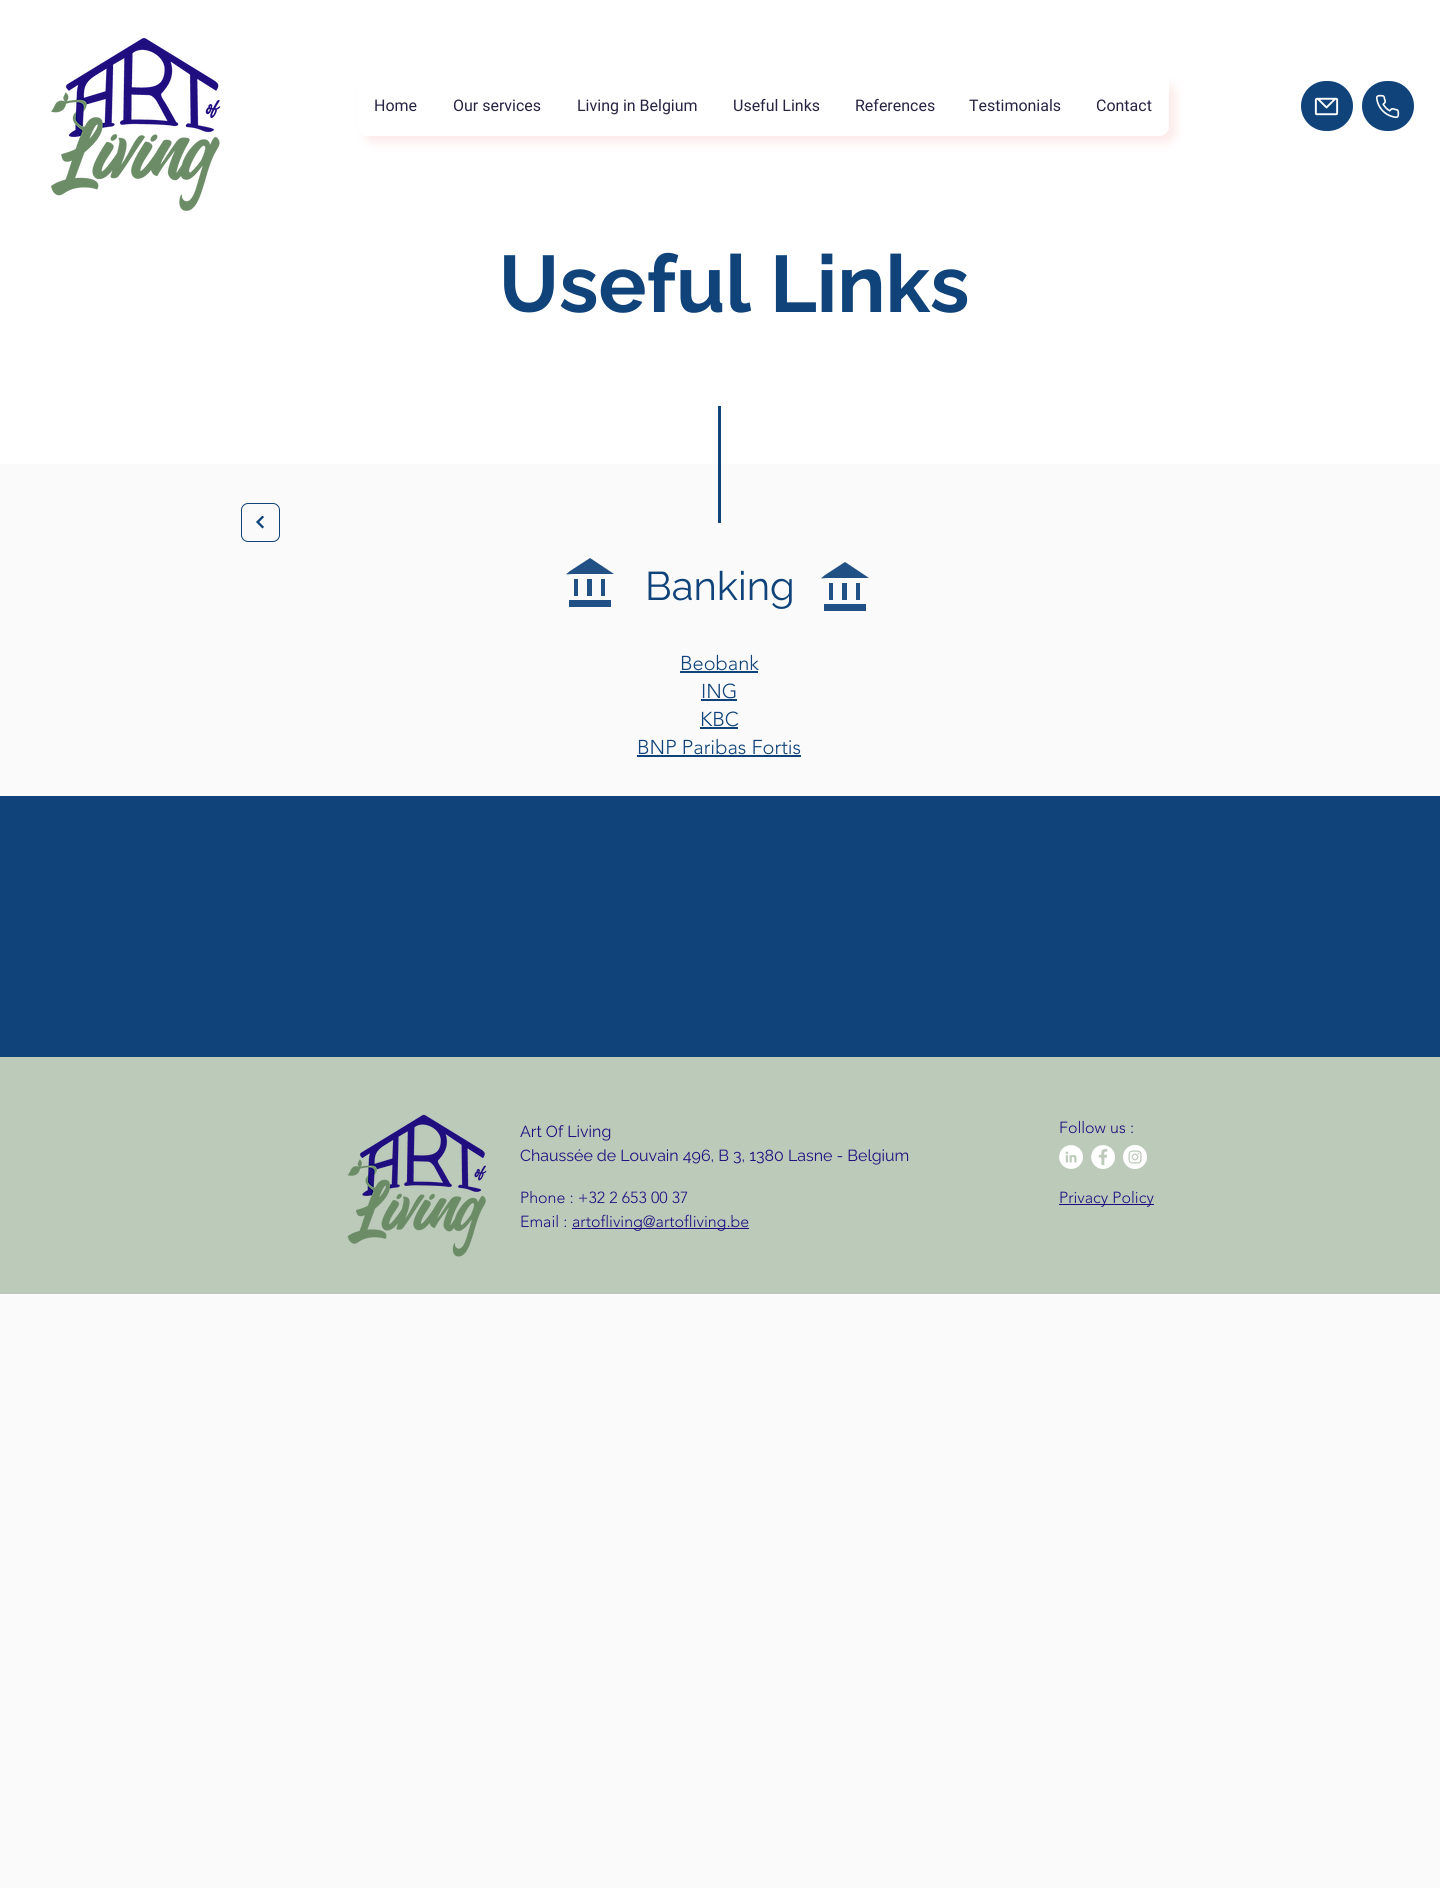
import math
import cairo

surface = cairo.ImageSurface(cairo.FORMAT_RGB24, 1440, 1888)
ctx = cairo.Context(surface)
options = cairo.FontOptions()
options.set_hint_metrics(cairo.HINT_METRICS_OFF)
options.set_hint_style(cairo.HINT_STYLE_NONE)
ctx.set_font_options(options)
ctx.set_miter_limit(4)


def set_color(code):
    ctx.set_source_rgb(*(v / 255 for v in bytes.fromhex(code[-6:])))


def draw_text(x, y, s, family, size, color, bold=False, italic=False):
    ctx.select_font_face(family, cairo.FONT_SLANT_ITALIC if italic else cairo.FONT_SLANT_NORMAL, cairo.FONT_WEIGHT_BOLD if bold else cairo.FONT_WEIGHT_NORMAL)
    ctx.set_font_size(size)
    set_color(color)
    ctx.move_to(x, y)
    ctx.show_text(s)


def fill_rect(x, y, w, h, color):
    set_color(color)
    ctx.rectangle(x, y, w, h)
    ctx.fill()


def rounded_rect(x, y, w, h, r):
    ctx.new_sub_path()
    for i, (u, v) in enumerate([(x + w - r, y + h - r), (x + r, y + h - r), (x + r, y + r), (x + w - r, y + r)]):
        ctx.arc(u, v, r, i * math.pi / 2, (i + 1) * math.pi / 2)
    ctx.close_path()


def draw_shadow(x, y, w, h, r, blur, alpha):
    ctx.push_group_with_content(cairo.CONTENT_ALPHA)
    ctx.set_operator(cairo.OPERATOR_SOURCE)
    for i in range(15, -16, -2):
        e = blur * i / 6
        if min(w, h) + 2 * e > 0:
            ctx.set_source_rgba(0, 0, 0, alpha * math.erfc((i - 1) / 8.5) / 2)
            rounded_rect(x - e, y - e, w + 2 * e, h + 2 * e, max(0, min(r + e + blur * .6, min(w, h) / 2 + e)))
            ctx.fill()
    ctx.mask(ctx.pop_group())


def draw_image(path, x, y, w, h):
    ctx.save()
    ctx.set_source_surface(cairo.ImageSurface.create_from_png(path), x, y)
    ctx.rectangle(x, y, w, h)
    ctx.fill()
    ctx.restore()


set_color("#fafafa")
ctx.paint()
fill_rect(0, 0, 1440, 464, "#ffffff")
draw_image("assets/img1.png", 51, 37, 170, 174)
ctx.save()
ctx.set_fill_rule(cairo.FILL_RULE_EVEN_ODD)
ctx.new_path()
ctx.move_to(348, 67)
ctx.line_to(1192, 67)
ctx.line_to(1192, 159)
ctx.line_to(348, 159)
ctx.close_path()
ctx.move_to(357, 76)
ctx.line_to(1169, 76)
ctx.line_to(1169, 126)
ctx.curve_to(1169, 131.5, 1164.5, 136, 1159, 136)
ctx.line_to(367, 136)
ctx.curve_to(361.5, 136, 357, 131.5, 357, 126)
ctx.close_path()
ctx.clip()
set_color("#da392b")
draw_shadow(364, 83, 812, 60, 10, 5, 0.1)
ctx.restore()
ctx.set_source_rgba(1, 1, 1, 0.69)
ctx.new_path()
ctx.move_to(357, 76)
ctx.line_to(1169, 76)
ctx.line_to(1169, 126)
ctx.curve_to(1169, 131.5, 1164.5, 136, 1159, 136)
ctx.line_to(367, 136)
ctx.curve_to(361.5, 136, 357, 131.5, 357, 126)
ctx.close_path()
ctx.fill()
draw_text(374, 111, "Home", "Roboto", 16, "#272443")
draw_text(453, 111, "Our services", "Roboto", 16, "#272443")
draw_text(577, 111, "Living in Belgium", "Roboto", 16, "#272443")
draw_text(733, 111, "Useful Links", "Roboto", 16, "#272443")
draw_text(855, 111, "References", "Roboto", 16, "#272443")
draw_text(969, 111, "Testimonials", "Roboto", 16, "#272443")
draw_text(1096, 111, "Contact", "Roboto", 16, "#272443")
set_color("#0f437a")
rounded_rect(1301, 81, 52, 50, 25)
ctx.fill()
draw_image("assets/img2.png", 1314, 97, 25, 19)
rounded_rect(1362, 81, 52, 50, 25)
ctx.fill()
draw_image("assets/img3.png", 1375, 94, 25, 25)
draw_text(499, 312, "Useful Links", "Raleway", 80, "#0f437a", bold=True)
fill_rect(718, 406, 3, 117, "#0f437a")
ctx.new_path()
ctx.move_to(273, 541.5)
ctx.line_to(248, 541.5)
ctx.curve_to(244.5, 541.5, 241.5, 538.5, 241.5, 535)
ctx.line_to(241.5, 510)
ctx.curve_to(241.5, 506.5, 244.5, 503.5, 248, 503.5)
ctx.line_to(273, 503.5)
ctx.curve_to(276.5, 503.5, 279.5, 506.5, 279.5, 510)
ctx.line_to(279.5, 535)
ctx.curve_to(279.5, 538.5, 276.5, 541.5, 273, 541.5)
ctx.close_path()
ctx.set_line_width(1)
ctx.stroke()
draw_image("assets/img4.png", 256, 516, 8, 13)
fill_rect(574, 579, 4, 17, "#215184")
fill_rect(601, 579, 4, 17, "#215184")
fill_rect(587, 579, 5, 17, "#215184")
ctx.new_path()
ctx.move_to(590, 558)
ctx.line_to(570, 571)
ctx.curve_to(564, 576, 565, 574, 574, 574)
ctx.line_to(614, 574)
ctx.close_path()
ctx.fill()
fill_rect(569, 600, 42, 7, "#215184")
draw_text(645, 600, "Banking", "Raleway", 40, "#0f437a")
fill_rect(829, 583, 4, 17, "#215184")
fill_rect(856, 583, 4, 17, "#215184")
fill_rect(842, 583, 5, 17, "#215184")
ctx.new_path()
ctx.move_to(845, 562)
ctx.line_to(825, 575)
ctx.curve_to(819, 580, 820, 578, 829, 578)
ctx.line_to(869, 578)
ctx.close_path()
ctx.fill()
fill_rect(824, 604, 42, 7, "#215184")
draw_text(680, 670, "Beobank", "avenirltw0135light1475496 Light", 20, "#0f437a")
fill_rect(680, 671, 78, 2, "#0f437a")
draw_text(701, 698, "ING", "avenirltw0135light1475496 Light", 20, "#0f437a")
fill_rect(701, 699, 36, 2, "#0f437a")
draw_text(700, 726, "KBC", "avenirltw0135light1475496 Light", 20, "#0f437a")
fill_rect(700, 727, 38, 2, "#0f437a")
draw_text(637, 754, "BNP Paribas Fortis", "avenirltw0135light1475496 Light", 20, "#0f437a")
fill_rect(637, 755, 164, 2, "#0f437a")
fill_rect(0, 796, 1440, 261, "#0f437a")
fill_rect(0, 1057, 1440, 237, "#bccaba")
draw_image("assets/img5.png", 347, 1114, 140, 143)
draw_text(520, 1137, "Art Of Living", "Raleway", 16, "#1f0e7f")
draw_text(520, 1161, "Chaussée de Louvain 496, B 3, 1380 Lasne - Belgium", "Raleway", 16, "#1f0e7f")
draw_text(1059, 1133, "Follow us :", "avenirltw0135light1475496 Light", 16, "#1f0e7f")
draw_image("assets/img6.png", 1059, 1145, 24, 24)
draw_image("assets/img7.png", 1091, 1145, 24, 24)
draw_image("assets/img8.png", 1123, 1145, 24, 24)
draw_text(520, 1203, "Phone : +32 2 653 00 37", "avenirltw0135light1475496 Light", 16, "#1f0e7f")
draw_text(520, 1227, "Email :", "avenirltw0135light1475496 Light", 16, "#1f0e7f")
fill_rect(572, 1228, 177, 1, "#1f0e7f")
draw_text(572, 1227, "artofliving@artofliving.be", "avenirltw0135light1475496 Light", 16, "#1f0e7f")
fill_rect(1059, 1204, 95, 1, "#1f0e7f")
draw_text(1059, 1203, "Privacy Policy", "avenirltw0135light1475496 Light", 16, "#1f0e7f")
surface.write_to_png("output.png")
